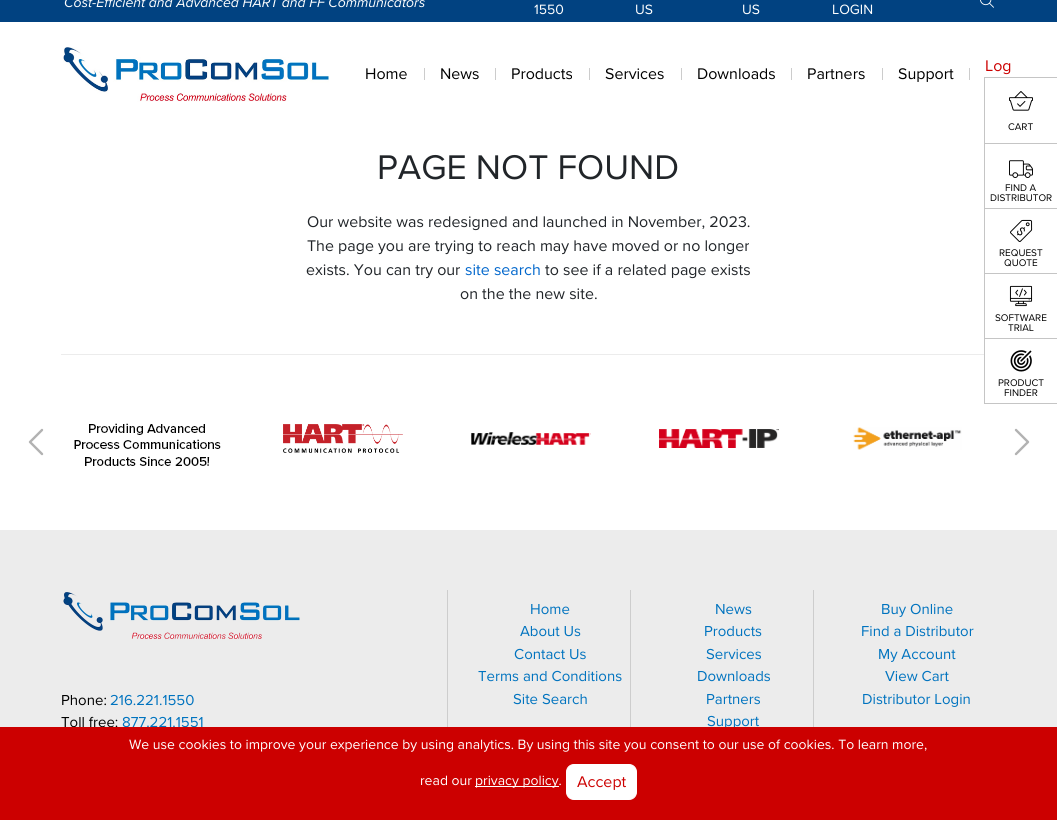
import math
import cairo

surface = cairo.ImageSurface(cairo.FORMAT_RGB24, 1057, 820)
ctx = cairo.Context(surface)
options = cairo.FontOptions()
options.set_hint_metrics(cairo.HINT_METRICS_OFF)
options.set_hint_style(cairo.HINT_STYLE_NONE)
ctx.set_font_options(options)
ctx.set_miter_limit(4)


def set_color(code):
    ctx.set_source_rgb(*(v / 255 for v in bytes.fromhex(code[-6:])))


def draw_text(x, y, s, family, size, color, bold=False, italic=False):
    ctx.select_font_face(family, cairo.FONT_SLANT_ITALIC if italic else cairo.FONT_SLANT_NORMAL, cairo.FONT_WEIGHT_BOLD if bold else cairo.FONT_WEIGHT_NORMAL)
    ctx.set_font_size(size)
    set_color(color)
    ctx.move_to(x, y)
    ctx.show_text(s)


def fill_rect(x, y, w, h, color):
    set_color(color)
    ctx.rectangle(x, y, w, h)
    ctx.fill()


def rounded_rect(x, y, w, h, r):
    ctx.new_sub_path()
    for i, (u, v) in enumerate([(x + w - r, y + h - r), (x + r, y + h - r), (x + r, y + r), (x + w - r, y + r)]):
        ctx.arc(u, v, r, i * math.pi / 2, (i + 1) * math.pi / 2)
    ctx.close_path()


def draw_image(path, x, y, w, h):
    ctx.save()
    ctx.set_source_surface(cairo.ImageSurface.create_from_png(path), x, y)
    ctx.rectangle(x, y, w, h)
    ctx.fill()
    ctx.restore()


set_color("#ffffff")
ctx.paint()
fill_rect(0, 0, 1057, 22, "#014281")
draw_text(64, 7, "Cost-Efficient and Advanced HART and FF Communicators", "Proxima Nova", 14, "#ffffff", italic=True)
draw_text(534, 14, "1550", "Proxima Nova", 14, "#ffffff")
draw_text(635, 14, "US", "Proxima Nova", 14, "#ffffff")
draw_text(742, 14, "US", "Proxima Nova", 14, "#ffffff")
draw_text(832, 14, "LOGIN", "Proxima Nova", 14, "#ffffff")
draw_image("assets/img1.png", 980, 0, 14, 8)
draw_image("assets/img2.png", 63, 47, 266, 55)
draw_text(365, 79, "Home", "Proxima Nova", 16, "#000000")
fill_rect(424, 68, 1, 12, "#cccccc")
draw_text(440, 79, "News", "Proxima Nova", 16, "#000000")
fill_rect(495, 68, 1, 12, "#cccccc")
draw_text(511, 79, "Products", "Proxima Nova", 16, "#000000")
fill_rect(589, 68, 1, 12, "#cccccc")
draw_text(605, 79, "Services", "Proxima Nova", 16, "#000000")
fill_rect(681, 68, 1, 12, "#cccccc")
draw_text(697, 79, "Downloads", "Proxima Nova", 16, "#000000")
fill_rect(791, 68, 1, 12, "#cccccc")
draw_text(807, 79, "Partners", "Proxima Nova", 16, "#000000")
fill_rect(882, 68, 1, 12, "#cccccc")
draw_text(898, 79, "Support", "Proxima Nova", 16, "#000000")
fill_rect(969, 68, 1, 12, "#cccccc")
draw_text(985, 71, "Log", "Proxima Nova", 16, "#cc0000")
draw_text(377, 179, "PAGE NOT FOUND", "Proxima Nova", 35.5, "#212529")
draw_text(307, 227, "Our website was redesigned and launched in November, 2023.", "Proxima Nova", 16, "#212529")
draw_text(307, 251, "The page you are trying to reach may have moved or no longer", "Proxima Nova", 16, "#212529")
draw_text(306, 275, "exists. You can try our", "Proxima Nova", 16, "#212529")
draw_text(465, 275, "site search", "Proxima Nova", 16, "#0066cc")
draw_text(545, 275, "to see if a related page exists", "Proxima Nova", 16, "#212529")
draw_text(460, 299, "on the the new site.", "Proxima Nova", 16, "#212529")
fill_rect(61, 354, 923, 1, "#ececec")
draw_image("assets/img3.png", 28, 428, 16, 28)
draw_image("assets/img4.png", 74, 423, 147, 43)
draw_image("assets/img5.png", 283, 424, 120, 29)
draw_image("assets/img6.png", 471, 432, 120, 13)
draw_image("assets/img7.png", 659, 429, 120, 19)
draw_image("assets/img8.png", 853, 427, 109, 23)
draw_image("assets/img9.png", 1014, 428, 16, 28)
fill_rect(984, 77, 73, 1, "#c5c5c5")
fill_rect(984, 403, 73, 1, "#c5c5c5")
fill_rect(984, 77, 1, 327, "#c5c5c5")
draw_image("assets/img10.png", 1009, 91, 24, 20)
draw_text(1008, 130, "CART", "Proxima Nova", 10, "#000000")
fill_rect(985, 143, 72, 1, "#c5c5c5")
draw_image("assets/img11.png", 1009, 160, 24, 18)
draw_text(1005, 191, "FIND A", "Proxima Nova", 10, "#000000")
draw_text(990, 201, "DISTRIBUTOR", "Proxima Nova", 10, "#000000")
fill_rect(985, 208, 72, 1, "#c5c5c5")
draw_image("assets/img12.png", 1010, 219, 23, 23)
draw_text(999, 256, "REQUEST", "Proxima Nova", 10, "#000000")
draw_text(1004, 266, "QUOTE", "Proxima Nova", 10, "#000000")
fill_rect(985, 273, 72, 1, "#c5c5c5")
draw_image("assets/img13.png", 1009, 285, 24, 22)
draw_text(995, 321, "SOFTWARE", "Proxima Nova", 10, "#000000")
draw_text(1008, 331, "TRIAL", "Proxima Nova", 10, "#000000")
fill_rect(985, 338, 72, 1, "#c5c5c5")
draw_image("assets/img14.png", 1010, 350, 22, 22)
draw_text(998, 386, "PRODUCT", "Proxima Nova", 10, "#000000")
draw_text(1004, 396, "FINDER", "Proxima Nova", 10, "#000000")
fill_rect(0, 530, 1057, 197, "#ececec")
draw_image("assets/img15.png", 63, 592, 237, 47)
draw_text(61, 705, "Phone:", "Proxima Nova", 15, "#000000")
draw_text(110, 705, "216.221.1550", "Proxima Nova", 15, "#0073bf")
draw_text(61, 727, "Toll free:", "Proxima Nova", 15, "#000000")
draw_text(122, 727, "877.221.1551", "Proxima Nova", 15, "#0073bf")
fill_rect(447, 590, 1, 137, "#cdcdcd")
draw_text(530, 614, "Home", "Proxima Nova", 15, "#0073bf")
draw_text(520, 636, "About Us", "Proxima Nova", 15, "#0073bf")
draw_text(514, 659, "Contact Us", "Proxima Nova", 15, "#0073bf")
draw_text(478, 681, "Terms and Conditions", "Proxima Nova", 15, "#0073bf")
draw_text(513, 704, "Site Search", "Proxima Nova", 15, "#0073bf")
fill_rect(630, 590, 1, 137, "#cdcdcd")
draw_text(715, 614, "News", "Proxima Nova", 15, "#0073bf")
draw_text(704, 636, "Products", "Proxima Nova", 15, "#0073bf")
draw_text(706, 659, "Services", "Proxima Nova", 15, "#0073bf")
draw_text(697, 681, "Downloads", "Proxima Nova", 15, "#0073bf")
draw_text(706, 704, "Partners", "Proxima Nova", 15, "#0073bf")
draw_text(707, 726, "Support", "Proxima Nova", 15, "#0073bf")
fill_rect(813, 590, 1, 137, "#cdcdcd")
draw_text(881, 614, "Buy Online", "Proxima Nova", 15, "#0073bf")
draw_text(861, 636, "Find a Distributor", "Proxima Nova", 15, "#0073bf")
draw_text(878, 659, "My Account", "Proxima Nova", 15, "#0073bf")
draw_text(885, 681, "View Cart", "Proxima Nova", 15, "#0073bf")
draw_text(862, 704, "Distributor Login", "Proxima Nova", 15, "#0073bf")
fill_rect(0, 727, 1057, 93, "#cc0000")
draw_text(129, 749, "We use cookies to improve your experience by using analytics. By using this site you consent to our use of cookies. To learn more,", "Proxima Nova", 14, "#ffffff")
draw_text(420, 785, "read our", "Proxima Nova", 14, "#ffffff")
fill_rect(475, 786, 84, 1, "#ffffff")
draw_text(475, 785, "privacy policy.", "Proxima Nova", 14, "#ffffff")
rounded_rect(566.5, 764.5, 70, 35, 7.5)
ctx.fill_preserve()
ctx.set_line_width(1)
ctx.stroke()
draw_text(577, 787, "Accept", "Proxima Nova", 16, "#cc0000")
surface.write_to_png("output.png")
